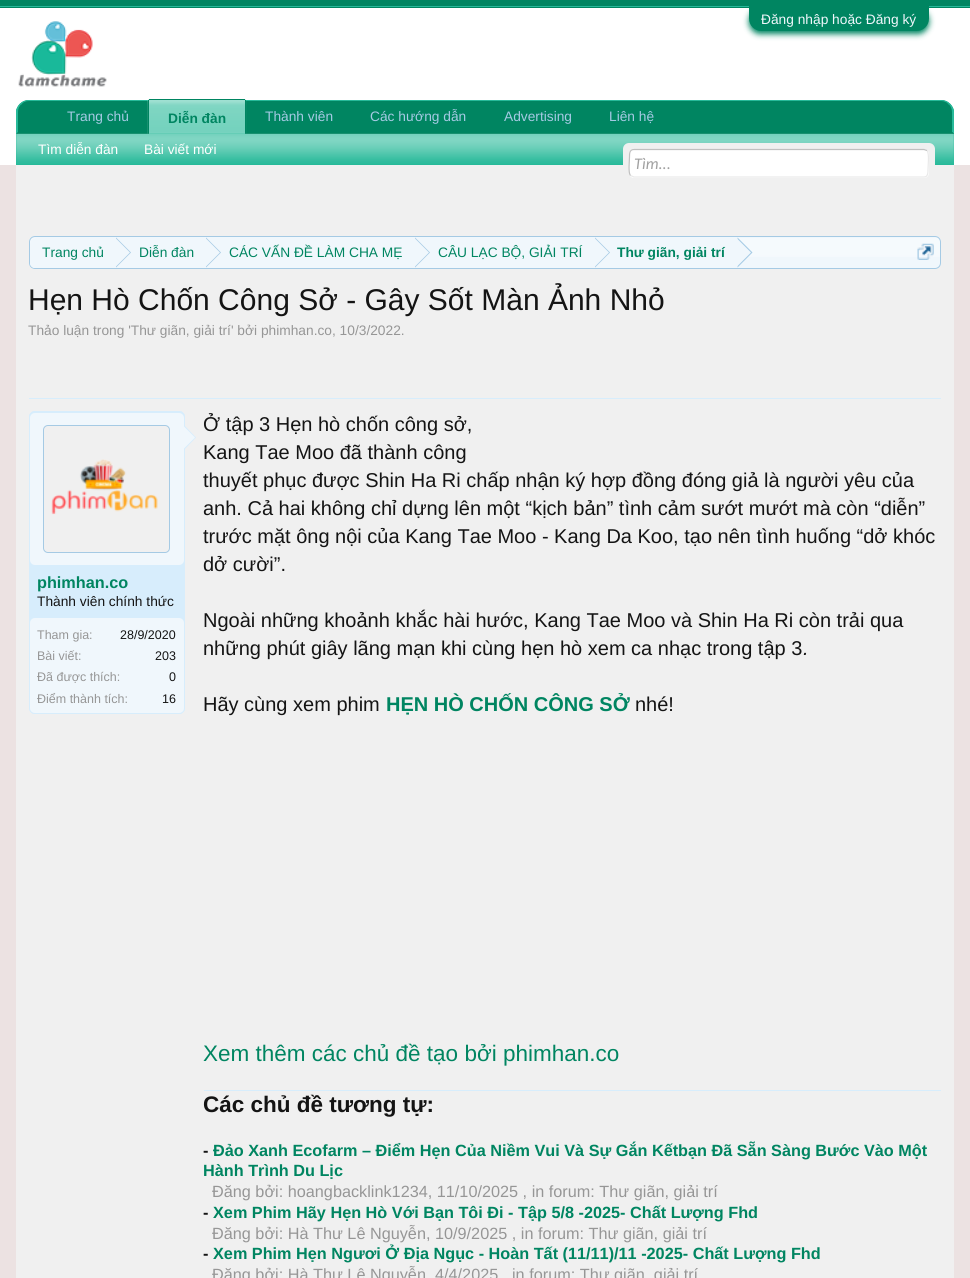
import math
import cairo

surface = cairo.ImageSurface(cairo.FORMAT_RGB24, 970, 1278)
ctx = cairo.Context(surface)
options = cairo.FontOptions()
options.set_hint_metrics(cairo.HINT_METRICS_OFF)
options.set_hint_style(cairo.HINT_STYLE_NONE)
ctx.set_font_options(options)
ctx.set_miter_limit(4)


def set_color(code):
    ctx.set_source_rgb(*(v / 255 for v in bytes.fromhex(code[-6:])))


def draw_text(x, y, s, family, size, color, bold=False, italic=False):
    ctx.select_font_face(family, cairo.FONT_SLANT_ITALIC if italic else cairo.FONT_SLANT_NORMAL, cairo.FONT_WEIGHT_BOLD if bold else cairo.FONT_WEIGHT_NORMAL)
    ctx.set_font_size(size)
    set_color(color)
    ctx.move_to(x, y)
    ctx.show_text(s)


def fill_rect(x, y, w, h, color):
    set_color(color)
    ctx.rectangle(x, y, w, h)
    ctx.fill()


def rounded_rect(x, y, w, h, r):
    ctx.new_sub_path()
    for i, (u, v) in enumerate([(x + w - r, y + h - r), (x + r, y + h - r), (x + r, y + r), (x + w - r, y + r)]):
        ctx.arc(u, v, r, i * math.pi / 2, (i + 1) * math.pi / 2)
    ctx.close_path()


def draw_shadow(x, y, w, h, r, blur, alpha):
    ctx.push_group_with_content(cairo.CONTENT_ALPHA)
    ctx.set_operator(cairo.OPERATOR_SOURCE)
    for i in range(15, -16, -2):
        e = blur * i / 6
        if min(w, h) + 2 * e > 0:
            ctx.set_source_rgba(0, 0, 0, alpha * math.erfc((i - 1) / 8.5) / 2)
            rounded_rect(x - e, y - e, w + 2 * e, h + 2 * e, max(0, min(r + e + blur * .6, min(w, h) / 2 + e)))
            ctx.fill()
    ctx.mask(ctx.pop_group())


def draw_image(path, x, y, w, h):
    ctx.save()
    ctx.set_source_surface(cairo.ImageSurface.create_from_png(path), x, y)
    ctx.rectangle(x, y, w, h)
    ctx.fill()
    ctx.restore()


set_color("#ece2e2")
ctx.paint()
fill_rect(0, 0, 970, 8, "#008561")
fill_rect(0, 6, 970, 1, "#27b999")
fill_rect(0, 8, 970, 157, "#ffffff")
set_color("#008561")
draw_shadow(749, 9, 180, 25, 12.5, 3, 1)
set_color("#008561")
ctx.new_path()
ctx.move_to(749, 6)
ctx.line_to(929, 6)
ctx.line_to(929, 18.5)
ctx.curve_to(929, 25.5, 923.5, 31, 916.5, 31)
ctx.line_to(761.5, 31)
ctx.curve_to(754.5, 31, 749, 25.5, 749, 18.5)
ctx.close_path()
ctx.fill()
draw_text(761, 24, "Đăng nhập hoặc Đăng ký", "Liberation Sans", 13.75, "#f0f7fc")
draw_image("assets/img1.png", 18, 21, 89, 66)
set_color("#008561")
ctx.new_path()
ctx.move_to(29, 100)
ctx.line_to(941, 100)
ctx.curve_to(948, 100, 954, 106, 954, 113)
ctx.line_to(954, 134)
ctx.line_to(16, 134)
ctx.line_to(16, 113)
ctx.curve_to(16, 106, 22, 100, 29, 100)
ctx.close_path()
ctx.fill()
set_color("#27b999")
ctx.new_path()
ctx.move_to(29, 100)
ctx.curve_to(26, 100, 22, 101, 20, 104)
ctx.line_to(21, 105)
ctx.curve_to(23, 102, 26, 101, 29, 101)
ctx.line_to(941, 101)
ctx.curve_to(944, 101, 947, 102, 949, 105)
ctx.line_to(950, 104)
ctx.curve_to(948, 101, 944, 100, 941, 100)
ctx.close_path()
ctx.fill()
ctx.new_path()
ctx.move_to(950, 103.5)
ctx.curve_to(952, 105.5, 953, 107.5, 954, 110)
ctx.line_to(954, 134)
ctx.line_to(952, 132)
ctx.line_to(952, 112)
ctx.curve_to(952, 109, 951, 106.5, 949, 104.5)
ctx.close_path()
ctx.fill()
set_color("#008561")
ctx.new_path()
ctx.move_to(954, 134)
ctx.line_to(952, 132)
ctx.line_to(18, 132)
ctx.line_to(16, 134)
ctx.close_path()
ctx.fill()
set_color("#27b999")
ctx.new_path()
ctx.move_to(16, 134)
ctx.line_to(16, 110)
ctx.curve_to(17, 107.5, 18, 105.5, 20, 103.5)
ctx.line_to(21, 104.5)
ctx.curve_to(19, 106.5, 18, 109, 18, 112)
ctx.line_to(18, 132)
ctx.close_path()
ctx.fill()
ctx.new_path()
ctx.move_to(150.5, 99)
ctx.line_to(243.5, 99)
ctx.curve_to(245, 99, 246, 100, 246, 101.5)
ctx.line_to(246, 134)
ctx.line_to(148, 134)
ctx.line_to(148, 101.5)
ctx.curve_to(148, 100, 149, 99, 150.5, 99)
ctx.close_path()
ctx.fill()
draw_image("assets/img2.png", 147, 100, 100, 34)
fill_rect(149, 99, 96, 1, "#008561")
fill_rect(245, 100, 1, 34, "#008561")
fill_rect(148, 100, 1, 34, "#008561")
draw_text(168, 123, "Diễn đàn", "Liberation Sans", 13.75, "#008561", bold=True)
fill_rect(16, 134, 938, 31, "#27b999")
draw_image("assets/img3.png", 16, 133, 938, 31)
draw_text(38, 154, "Tìm diễn đàn", "Liberation Sans", 13.75, "#ffffff")
draw_text(144, 154, "Bài viết mới", "Liberation Sans", 13.75, "#ffffff")
draw_text(370, 121, "Các hướng dẫn", "Liberation Sans", 13.75, "#a5cae4")
draw_text(67, 121, "Trang chủ", "Liberation Sans", 13.75, "#a5cae4")
draw_text(265, 121, "Thành viên", "Liberation Sans", 13.75, "#a5cae4")
draw_text(504, 121, "Advertising", "Liberation Sans", 13.75, "#a5cae4")
draw_text(609, 121, "Liên hệ", "Liberation Sans", 13.75, "#a5cae4")
fill_rect(16, 165, 938, 1113, "#f0f0f0")
rounded_rect(623, 143, 312, 35, 6)
ctx.fill()
set_color("#ffffff")
rounded_rect(629, 149, 300, 29, 5)
ctx.fill()
ctx.new_path()
ctx.move_to(927, 150.5)
ctx.curve_to(929.5, 153.5, 928, 165.5, 928, 169.5)
ctx.curve_to(928, 172.5, 928, 177, 924, 177)
ctx.line_to(634, 177)
ctx.line_to(630.5, 175.5)
set_color("#e9e9e9")
ctx.set_line_width(1.2)
ctx.stroke()
ctx.new_path()
ctx.move_to(630.5, 175.5)
ctx.curve_to(628, 173, 629.5, 160.5, 629.5, 157)
ctx.curve_to(629.5, 153.5, 629.5, 149.5, 634, 149.5)
ctx.line_to(924, 149.5)
ctx.line_to(927, 150.5)
set_color("#c0c0c0")
ctx.stroke()
draw_text(634, 169, "Tìm...", "Carlito", 16.25, "#a0a0a0", italic=True)
set_color("#f0f7fc")
rounded_rect(29, 236, 912, 33, 6)
ctx.fill()
draw_image("assets/img4.png", 29, 238, 912, 19)
rounded_rect(29.5, 236.5, 911, 32, 5.5)
set_color("#a5cae4")
ctx.set_line_width(1)
ctx.stroke()
ctx.save()
rounded_rect(30, 238, 910, 30, 5)
ctx.clip()
set_color("#f0f7fc")
ctx.new_path()
ctx.move_to(36, 238)
ctx.line_to(116, 238)
ctx.line_to(116, 269)
ctx.line_to(36, 269)
ctx.curve_to(32.5, 269, 30, 266.5, 30, 263)
ctx.line_to(30, 244)
ctx.curve_to(30, 240.5, 32.5, 238, 36, 238)
ctx.close_path()
ctx.fill()
ctx.restore()
draw_text(42, 257, "Trang chủ", "Liberation Sans", 13.75, "#008561")
fill_rect(116, 238, 622, 19, "#f0f7fc")
set_color("#a5cae4")
ctx.new_path()
ctx.move_to(116, 267.5)
ctx.line_to(116, 237.5)
ctx.line_to(131, 252.5)
ctx.close_path()
ctx.fill()
set_color("#f0f7fc")
ctx.new_path()
ctx.move_to(115, 267.5)
ctx.line_to(115, 237.5)
ctx.line_to(130, 252.5)
ctx.close_path()
ctx.fill()
draw_text(139, 257, "Diễn đàn", "Liberation Sans", 13.75, "#008561")
set_color("#a5cae4")
ctx.new_path()
ctx.move_to(206, 267.5)
ctx.line_to(206, 237.5)
ctx.line_to(221, 252.5)
ctx.close_path()
ctx.fill()
set_color("#f0f7fc")
ctx.new_path()
ctx.move_to(205, 267.5)
ctx.line_to(205, 237.5)
ctx.line_to(220, 252.5)
ctx.close_path()
ctx.fill()
draw_text(229, 257, "CÁC VẤN ĐỀ LÀM CHA MẸ", "Liberation Sans", 13.75, "#008561")
set_color("#a5cae4")
ctx.new_path()
ctx.move_to(415, 267.5)
ctx.line_to(415, 237.5)
ctx.line_to(430, 252.5)
ctx.close_path()
ctx.fill()
set_color("#f0f7fc")
ctx.new_path()
ctx.move_to(414, 267.5)
ctx.line_to(414, 237.5)
ctx.line_to(429, 252.5)
ctx.close_path()
ctx.fill()
draw_text(438, 257, "CÂU LẠC BỘ, GIẢI TRÍ", "Liberation Sans", 13.75, "#008561")
set_color("#a5cae4")
ctx.new_path()
ctx.move_to(595, 267.5)
ctx.line_to(595, 237.5)
ctx.line_to(610, 252.5)
ctx.close_path()
ctx.fill()
set_color("#f0f7fc")
ctx.new_path()
ctx.move_to(594, 267.5)
ctx.line_to(594, 237.5)
ctx.line_to(609, 252.5)
ctx.close_path()
ctx.fill()
draw_text(617, 257, "Thư giãn, giải trí", "Liberation Sans", 13.75, "#008561", bold=True)
set_color("#a5cae4")
ctx.new_path()
ctx.move_to(737.5, 267.5)
ctx.line_to(737.5, 237.5)
ctx.line_to(752.5, 252.5)
ctx.close_path()
ctx.fill()
set_color("#f0f7fc")
ctx.new_path()
ctx.move_to(736, 267.5)
ctx.line_to(736, 237.5)
ctx.line_to(751, 252.5)
ctx.close_path()
ctx.fill()
draw_image("assets/img5.png", 917, 243, 17, 17)
draw_text(28, 310, "Hẹn Hò Chốn Công Sở - Gây Sốt Màn Ảnh Nhỏ", "Liberation Sans", 30, "#141414")
draw_text(28, 335, "Thảo luận trong 'Thư giãn, giải trí' bởi phimhan.co, 10/3/2022.", "Liberation Sans", 13.75, "#969696")
fill_rect(29, 398, 912, 1, "#d7edfc")
rounded_rect(29, 411, 156, 303, 6)
ctx.fill()
draw_image("assets/img6.png", 29, 708, 156, 5)
rounded_rect(29.5, 411.5, 155, 302, 5.5)
ctx.stroke()
set_color("#f0f7fc")
rounded_rect(30, 413, 154, 152, 5)
ctx.fill()
set_color("#f0f0f0")
rounded_rect(43.5, 425.5, 126, 127, 4.5)
ctx.fill_preserve()
set_color("#a5cae4")
ctx.stroke()
draw_image("assets/img7.png", 51, 459, 107, 56)
set_color("#d7edfc")
ctx.new_path()
ctx.move_to(184, 450)
ctx.line_to(184, 425)
ctx.line_to(196, 437.5)
ctx.close_path()
ctx.fill()
set_color("#f0f7fc")
ctx.new_path()
ctx.move_to(182.5, 450)
ctx.line_to(182.5, 425)
ctx.line_to(195, 437.5)
ctx.close_path()
ctx.fill()
draw_text(37, 588, "phimhan.co", "Liberation Sans", 16.25, "#008561", bold=True)
draw_text(37, 606, "Thành viên chính thức", "Liberation Sans", 13.75, "#141414")
set_color("#f0f7fc")
rounded_rect(30, 618, 154, 95, 5)
ctx.fill()
draw_text(37, 639, "Tham gia:", "Liberation Sans", 12.5, "#969696")
draw_text(120, 639, "28/9/2020", "Liberation Sans", 12.5, "#141414")
draw_text(37, 660, "Bài viết:", "Liberation Sans", 12.5, "#969696")
draw_text(155, 660, "203", "Liberation Sans", 12.5, "#141414")
draw_text(37, 681, "Đã được thích:", "Liberation Sans", 12.5, "#969696")
draw_text(169, 681, "0", "Liberation Sans", 12.5, "#141414")
draw_text(37, 703, "Điểm thành tích:", "Liberation Sans", 12.5, "#969696")
draw_text(162, 703, "16", "Liberation Sans", 12.5, "#141414")
draw_text(203, 431, "Ở tập 3 Hẹn hò chốn công sở,", "Liberation Sans", 20, "#141414")
draw_text(203, 459, "Kang Tae Moo đã thành công", "Liberation Sans", 20, "#141414")
draw_text(203, 487, "thuyết phục được Shin Ha Ri chấp nhận ký hợp đồng đóng giả là người yêu của", "Liberation Sans", 20, "#141414")
draw_text(203, 515, "anh. Cả hai không chỉ dựng lên một “kịch bản” tình cảm sướt mướt mà còn “diễn”", "Liberation Sans", 20, "#141414")
draw_text(203, 543, "trước mặt ông nội của Kang Tae Moo - Kang Da Koo, tạo nên tình huống “dở khóc", "Liberation Sans", 20, "#141414")
draw_text(203, 571, "dở cười”.", "Liberation Sans", 20, "#141414")
draw_text(203, 627, "Ngoài những khoảnh khắc hài hước, Kang Tae Moo và Shin Ha Ri còn trải qua", "Liberation Sans", 20, "#141414")
draw_text(203, 655, "những phút giây lãng mạn khi cùng hẹn hò xem ca nhạc trong tập 3", "Liberation Sans", 20, "#141414")
draw_text(803, 655, ".", "Liberation Sans", 20, "#141414", italic=True)
draw_text(203, 711, "Hãy cùng xem phim", "Liberation Sans", 20, "#141414")
draw_text(386, 711, "HẸN HÒ CHỐN CÔNG SỞ", "Liberation Sans", 20, "#008561", bold=True)
draw_text(635, 711, "nhé!", "Liberation Sans", 20, "#141414")
draw_text(203, 1061, "Xem thêm các chủ đề tạo bởi phimhan.co", "Liberation Sans", 22.5, "#008561")
fill_rect(204, 1090, 737, 1, "#d7edfc")
draw_text(203, 1112, "Các chủ đề tương tự:", "Liberation Sans", 22.5, "#141414", bold=True)
draw_text(203, 1156, "-", "Liberation Sans", 16.25, "#141414", bold=True)
draw_text(213, 1156, "Đảo Xanh Ecofarm – Điểm Hẹn Của Niềm Vui Và Sự Gắn Kếtbạn Đã Sẵn Sàng Bước Vào Một", "Liberation Sans", 16.25, "#008561", bold=True)
draw_text(203, 1176, "Hành Trình Du Lịc", "Liberation Sans", 16.25, "#008561", bold=True)
draw_text(212, 1197, "Đăng bởi: hoangbacklink1234, 11/10/2025 , in forum: Thư giãn, giải trí", "Liberation Sans", 16.25, "#969696")
draw_text(203, 1218, "-", "Liberation Sans", 16.25, "#141414", bold=True)
draw_text(213, 1218, "Xem Phim Hãy Hẹn Hò Với Bạn Tôi Đi - Tập 5/8 -2025- Chất Lượng Fhd", "Liberation Sans", 16.25, "#008561", bold=True)
draw_text(212, 1239, "Đăng bởi: Hà Thư Lê Nguyễn, 10/9/2025 , in forum: Thư giãn, giải trí", "Liberation Sans", 16.25, "#969696")
draw_text(203, 1259, "-", "Liberation Sans", 16.25, "#141414", bold=True)
draw_text(213, 1259, "Xem Phim Hẹn Ngươi Ở Địa Ngục - Hoàn Tất (11/11)/11 -2025- Chất Lượng Fhd", "Liberation Sans", 16.25, "#008561", bold=True)
draw_text(212, 1280, "Đăng bởi: Hà Thư Lê Nguyễn", "Liberation Sans", 16.25, "#969696")
draw_text(435, 1280, "4/4/2025", "Liberation Sans", 16.25, "#969696")
draw_text(512, 1280, "in forum: Thư giãn, giải trí", "Liberation Sans", 16.25, "#969696")
surface.write_to_png("output.png")
